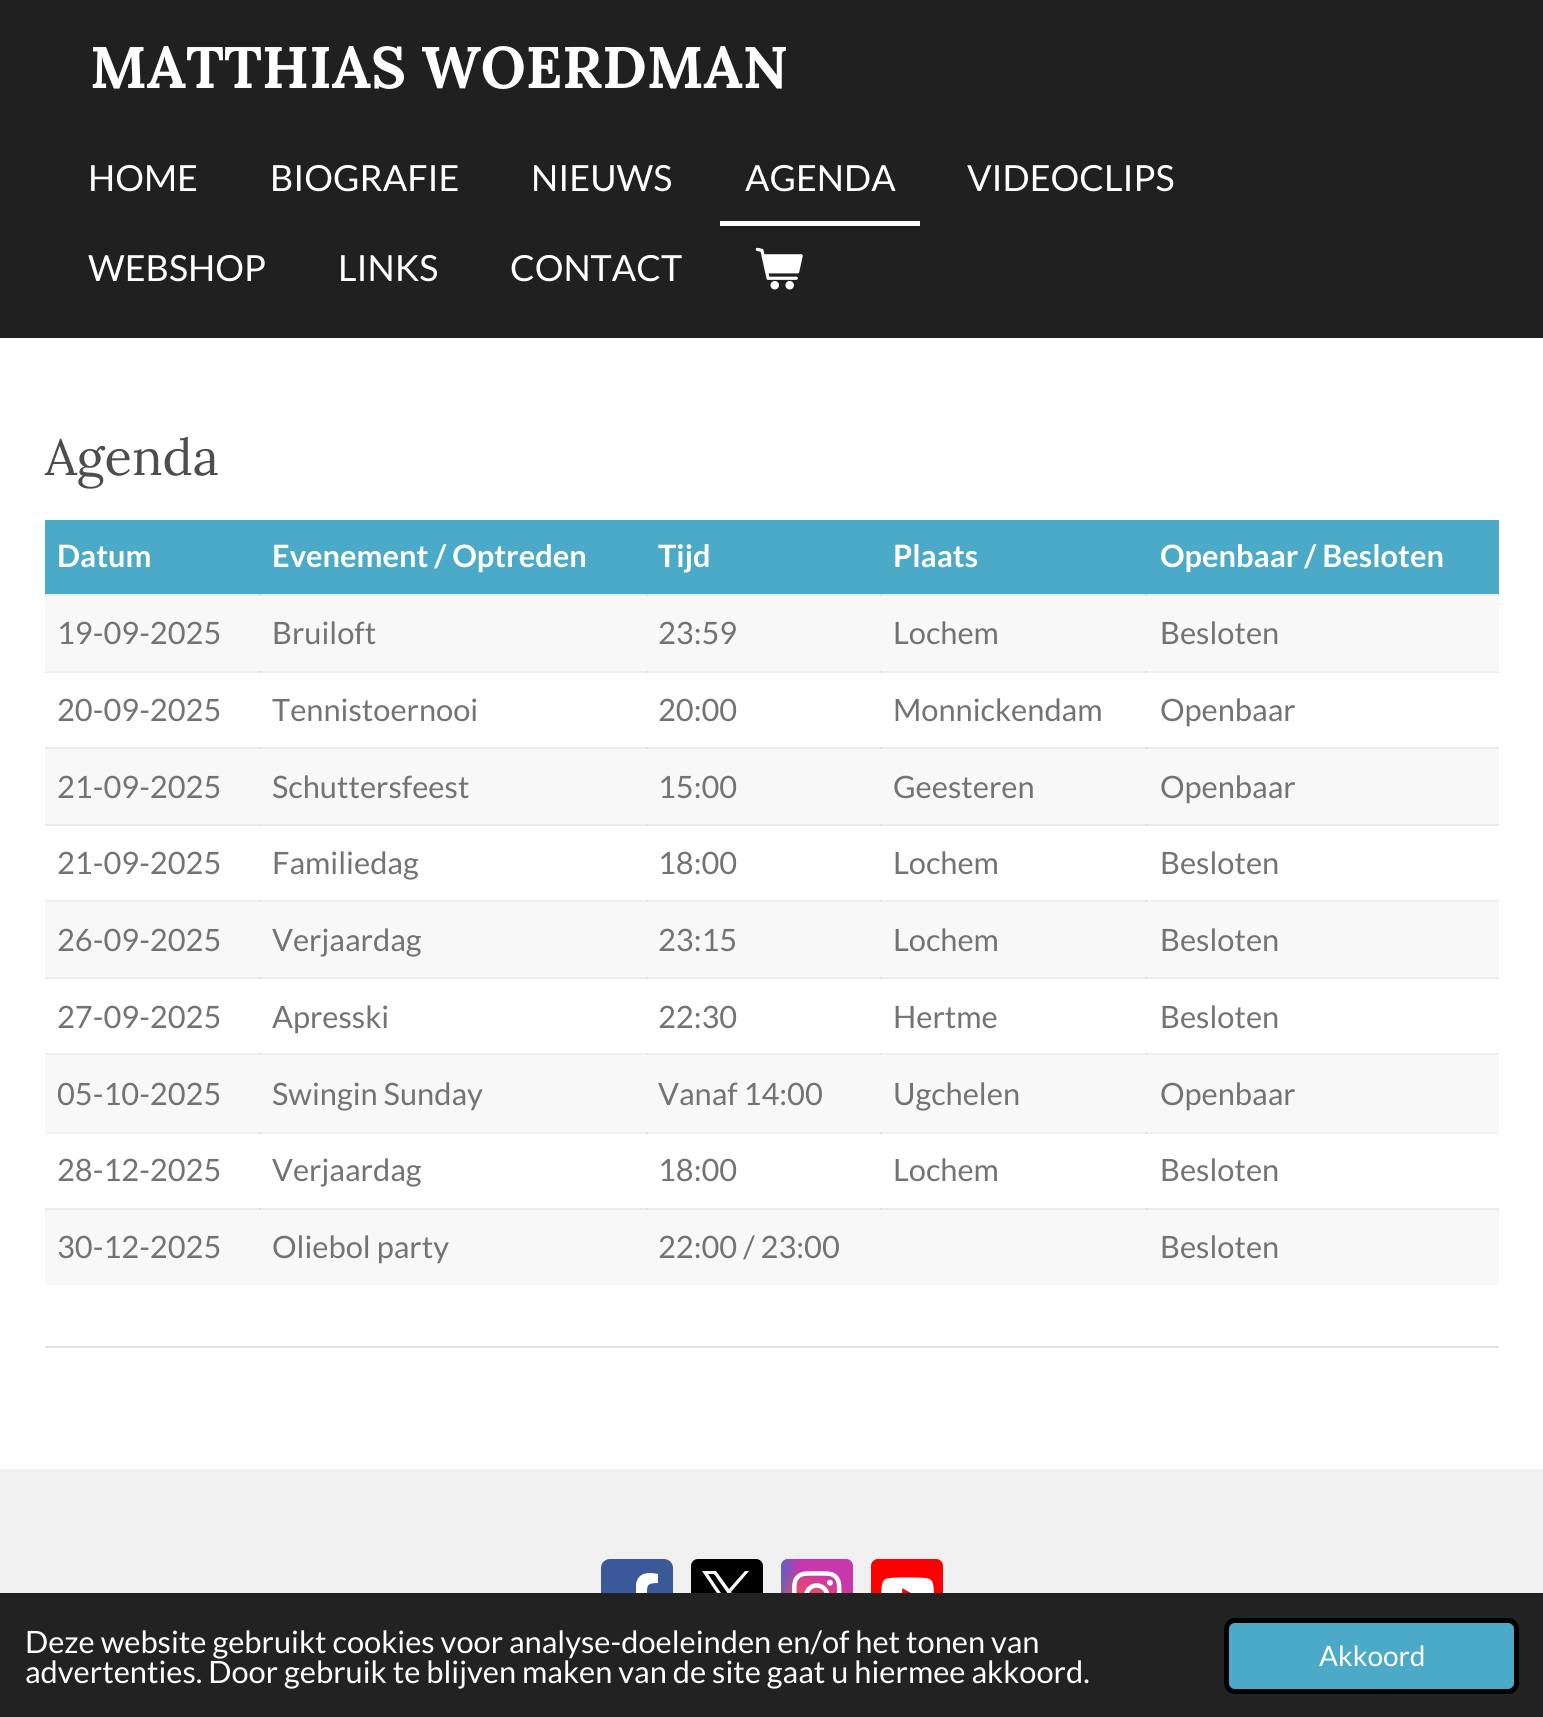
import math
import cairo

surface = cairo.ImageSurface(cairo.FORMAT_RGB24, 1543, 1717)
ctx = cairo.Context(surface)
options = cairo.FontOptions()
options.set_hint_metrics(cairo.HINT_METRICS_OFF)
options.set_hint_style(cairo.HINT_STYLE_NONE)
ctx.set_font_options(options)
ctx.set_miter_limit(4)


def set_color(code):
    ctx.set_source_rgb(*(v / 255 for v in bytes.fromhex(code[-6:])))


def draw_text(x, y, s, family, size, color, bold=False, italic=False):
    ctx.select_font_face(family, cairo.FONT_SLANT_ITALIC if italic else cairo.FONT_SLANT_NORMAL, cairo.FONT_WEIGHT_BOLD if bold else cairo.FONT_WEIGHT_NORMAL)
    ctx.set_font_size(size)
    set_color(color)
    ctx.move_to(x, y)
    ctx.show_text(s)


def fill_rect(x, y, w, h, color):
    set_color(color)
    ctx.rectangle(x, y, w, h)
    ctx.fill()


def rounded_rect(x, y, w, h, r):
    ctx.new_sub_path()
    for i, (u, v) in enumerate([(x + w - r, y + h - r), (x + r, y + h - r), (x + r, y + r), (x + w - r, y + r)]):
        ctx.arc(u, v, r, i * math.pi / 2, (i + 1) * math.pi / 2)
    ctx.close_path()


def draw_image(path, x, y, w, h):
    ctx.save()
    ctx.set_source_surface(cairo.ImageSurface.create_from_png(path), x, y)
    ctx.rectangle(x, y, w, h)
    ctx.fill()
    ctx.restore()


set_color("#ffffff")
ctx.paint()
fill_rect(45, 671, 1454, 2, "#f1f1f1")
fill_rect(259, 671, 2, 2, "#e4e4e4")
fill_rect(646, 671, 2, 2, "#e4e4e4")
fill_rect(880, 671, 2, 2, "#e4e4e4")
fill_rect(45, 900, 1454, 2, "#f1f1f1")
fill_rect(259, 900, 2, 2, "#e4e4e4")
fill_rect(646, 900, 2, 2, "#e4e4e4")
fill_rect(880, 900, 2, 2, "#e4e4e4")
fill_rect(45, 1053, 1454, 2, "#f1f1f1")
fill_rect(259, 1053, 2, 2, "#e4e4e4")
fill_rect(646, 1053, 2, 2, "#e4e4e4")
fill_rect(880, 1053, 2, 2, "#e4e4e4")
fill_rect(45, 1132, 1454, 2, "#f1f1f1")
fill_rect(259, 1132, 2, 2, "#e4e4e4")
fill_rect(646, 1132, 2, 2, "#e4e4e4")
fill_rect(880, 1132, 2, 2, "#e4e4e4")
fill_rect(0, 0, 1543, 338, "#202020")
draw_text(90, 88, "MATTHIAS WOERDMAN", "Lora", 58.5, "#ffffff", bold=True)
draw_text(88, 191, "HOME", "Lato", 36, "#ffffff")
draw_text(270, 191, "BIOGRAFIE", "Lato", 36, "#ffffff")
draw_text(531, 191, "NIEUWS", "Lato", 36, "#ffffff")
fill_rect(720, 221, 200, 5, "#ffffff")
draw_text(745, 191, "AGENDA", "Lato", 36, "#ffffff")
draw_text(967, 191, "VIDEOCLIPS", "Lato", 36, "#ffffff")
draw_text(88, 281, "WEBSHOP", "Lato", 36, "#ffffff")
draw_text(338, 281, "LINKS", "Lato", 36, "#ffffff")
draw_text(510, 281, "CONTACT", "Lato", 36, "#ffffff")
draw_image("assets/img1.png", 755, 247, 48, 43)
draw_text(45, 475, "Agenda", "Lora", 50.5, "#4d4d4d")
fill_rect(45, 520, 1454, 74, "#4caac9")
draw_text(57, 567, "Datum", "Lato", 30.8, "#ffffff", bold=True)
draw_text(272, 567, "Evenement / Optreden", "Lato", 30.8, "#ffffff", bold=True)
draw_text(658, 567, "Tijd", "Lato", 30.8, "#ffffff", bold=True)
draw_text(893, 567, "Plaats", "Lato", 30.8, "#ffffff", bold=True)
draw_text(1160, 567, "Openbaar / Besloten", "Lato", 30.8, "#ffffff", bold=True)
fill_rect(45, 596, 1454, 75, "#f8f8f8")
fill_rect(45, 594, 1454, 2, "#ebebeb")
fill_rect(259, 594, 2, 2, "#dfdfdf")
draw_text(57, 644, "19-09-2025", "Lato", 30.8, "#737373")
draw_text(272, 644, "Bruiloft", "Lato", 30.8, "#737373")
fill_rect(646, 594, 2, 2, "#dfdfdf")
fill_rect(880, 594, 2, 2, "#dfdfdf")
draw_text(658, 644, "23:59", "Lato", 30.8, "#737373")
draw_text(893, 644, "Lochem", "Lato", 30.8, "#737373")
fill_rect(1145, 594, 3, 2, "#dfdfdf")
draw_text(1160, 644, "Besloten", "Lato", 30.8, "#737373")
draw_text(57, 721, "20-09-2025", "Lato", 30.8, "#737373")
draw_text(272, 721, "Tennistoernooi", "Lato", 30.8, "#737373")
draw_text(658, 721, "20:00", "Lato", 30.8, "#737373")
draw_text(893, 721, "Monnickendam", "Lato", 30.8, "#737373")
fill_rect(1145, 671, 3, 2, "#e4e4e4")
draw_text(1160, 721, "Openbaar", "Lato", 30.8, "#737373")
fill_rect(45, 749, 1454, 75, "#f8f8f8")
fill_rect(45, 747, 1454, 2, "#ebebeb")
fill_rect(259, 747, 2, 2, "#dfdfdf")
fill_rect(45, 824, 1454, 2, "#ebebeb")
fill_rect(259, 824, 2, 2, "#dfdfdf")
draw_text(57, 798, "21-09-2025", "Lato", 30.8, "#737373")
draw_text(272, 798, "Schuttersfeest", "Lato", 30.8, "#737373")
fill_rect(646, 747, 2, 2, "#dfdfdf")
fill_rect(880, 747, 2, 2, "#dfdfdf")
fill_rect(646, 824, 2, 2, "#dfdfdf")
fill_rect(880, 824, 2, 2, "#dfdfdf")
draw_text(658, 798, "15:00", "Lato", 30.8, "#737373")
draw_text(893, 798, "Geesteren", "Lato", 30.8, "#737373")
fill_rect(1145, 747, 3, 2, "#dfdfdf")
draw_text(1160, 798, "Openbaar", "Lato", 30.8, "#737373")
draw_text(57, 874, "21-09-2025", "Lato", 30.8, "#737373")
draw_text(272, 874, "Familiedag", "Lato", 30.8, "#737373")
draw_text(658, 874, "18:00", "Lato", 30.8, "#737373")
draw_text(893, 874, "Lochem", "Lato", 30.8, "#737373")
fill_rect(1145, 824, 3, 2, "#dfdfdf")
draw_text(1160, 874, "Besloten", "Lato", 30.8, "#737373")
fill_rect(45, 902, 1454, 75, "#f8f8f8")
fill_rect(45, 977, 1454, 2, "#ebebeb")
fill_rect(259, 977, 2, 2, "#dfdfdf")
draw_text(57, 951, "26-09-2025", "Lato", 30.8, "#737373")
draw_text(272, 951, "Verjaardag", "Lato", 30.8, "#737373")
fill_rect(646, 977, 2, 2, "#dfdfdf")
fill_rect(880, 977, 2, 2, "#dfdfdf")
draw_text(658, 951, "23:15", "Lato", 30.8, "#737373")
draw_text(893, 951, "Lochem", "Lato", 30.8, "#737373")
fill_rect(1145, 900, 3, 2, "#e4e4e4")
draw_text(1160, 951, "Besloten", "Lato", 30.8, "#737373")
draw_text(57, 1028, "27-09-2025", "Lato", 30.8, "#737373")
draw_text(272, 1028, "Apresski", "Lato", 30.8, "#737373")
draw_text(658, 1028, "22:30", "Lato", 30.8, "#737373")
draw_text(893, 1028, "Hertme", "Lato", 30.8, "#737373")
fill_rect(1145, 977, 3, 2, "#dfdfdf")
draw_text(1160, 1028, "Besloten", "Lato", 30.8, "#737373")
fill_rect(45, 1055, 1454, 77, "#f8f8f8")
draw_text(57, 1105, "05-10-2025", "Lato", 30.8, "#737373")
draw_text(272, 1105, "Swingin Sunday", "Lato", 30.8, "#737373")
draw_text(658, 1105, "Vanaf 14:00", "Lato", 30.8, "#737373")
draw_text(893, 1105, "Ugchelen", "Lato", 30.8, "#737373")
fill_rect(1145, 1053, 3, 2, "#e4e4e4")
draw_text(1160, 1105, "Openbaar", "Lato", 30.8, "#737373")
draw_text(57, 1181, "28-12-2025", "Lato", 30.8, "#737373")
draw_text(272, 1181, "Verjaardag", "Lato", 30.8, "#737373")
draw_text(658, 1181, "18:00", "Lato", 30.8, "#737373")
draw_text(893, 1181, "Lochem", "Lato", 30.8, "#737373")
fill_rect(1145, 1132, 3, 2, "#e4e4e4")
draw_text(1160, 1181, "Besloten", "Lato", 30.8, "#737373")
fill_rect(45, 1210, 1454, 75, "#f8f8f8")
fill_rect(45, 1208, 1454, 2, "#ebebeb")
fill_rect(259, 1208, 2, 2, "#dfdfdf")
draw_text(57, 1258, "30-12-2025", "Lato", 30.8, "#737373")
draw_text(272, 1258, "Oliebol party", "Lato", 30.8, "#737373")
fill_rect(646, 1208, 2, 2, "#dfdfdf")
fill_rect(880, 1208, 2, 2, "#dfdfdf")
draw_text(658, 1258, "22:00 / 23:00", "Lato", 30.8, "#737373")
fill_rect(1145, 1208, 3, 2, "#dfdfdf")
draw_text(1160, 1258, "Besloten", "Lato", 30.8, "#737373")
fill_rect(45, 1346, 1454, 2, "#e3e3e3")
fill_rect(0, 1469, 1543, 124, "#f0f0f0")
set_color("#3b5998")
rounded_rect(601, 1559, 72, 72, 9)
ctx.fill()
set_color("#ffffff")
ctx.new_path()
ctx.move_to(656, 1607)
ctx.line_to(647, 1607)
ctx.line_to(647, 1631)
ctx.line_to(636, 1631)
ctx.line_to(636, 1607)
ctx.line_to(626, 1607)
ctx.line_to(626, 1596)
ctx.line_to(636, 1596)
ctx.line_to(636, 1584)
ctx.curve_to(638, 1572, 649, 1572, 658, 1574)
ctx.line_to(658, 1583)
ctx.curve_to(646, 1583, 647, 1586, 647, 1596)
ctx.line_to(658, 1596)
ctx.close_path()
ctx.fill()
set_color("#000000")
rounded_rect(691, 1559, 72, 72, 7)
ctx.fill()
set_color("#ffffff")
ctx.new_path()
ctx.move_to(731, 1592)
ctx.line_to(749, 1571)
ctx.line_to(745, 1571)
ctx.line_to(729, 1589)
ctx.line_to(716, 1571)
ctx.line_to(702, 1571)
ctx.line_to(721, 1599)
ctx.line_to(702, 1621)
ctx.line_to(706, 1621)
ctx.line_to(723, 1601)
ctx.line_to(736, 1621)
ctx.line_to(750, 1621)
ctx.close_path()
ctx.move_to(725, 1599)
ctx.line_to(708, 1574)
ctx.line_to(714, 1574)
ctx.line_to(745, 1618)
ctx.line_to(738, 1618)
ctx.close_path()
ctx.fill()
gradient = cairo.RadialGradient(0, 0, 0, 0, 0, 1)
gradient.set_matrix(cairo.Matrix(1 / 70, 0, 0, 1 / 65, -1 * 800 / 70, -1 * 1636 / 65))
gradient.add_color_stop_rgba(0, 1, 0.867, 0.333, 1)
gradient.add_color_stop_rgba(0.1, 1, 0.867, 0.333, 1)
gradient.add_color_stop_rgba(0.5, 1, 0.329, 0.243, 1)
gradient.add_color_stop_rgba(1, 0.784, 0.216, 0.671, 1)
ctx.set_source(gradient)
rounded_rect(781, 1559, 72, 72, 7)
ctx.fill()
gradient = cairo.RadialGradient(0, 0, 0, 0, 0, 1)
gradient.set_matrix(cairo.Matrix(1 / 31, 0, 0, 1 / 130, -1 * 769 / 31, -1 * 1564 / 130))
gradient.add_color_stop_rgba(0, 0.216, 0.443, 0.784, 1)
gradient.add_color_stop_rgba(0.13, 0.216, 0.443, 0.784, 1)
gradient.add_color_stop_rgba(1, 0.216, 0.443, 0.784, 0)
ctx.set_source(gradient)
rounded_rect(781, 1559, 72, 72, 7)
ctx.fill()
draw_image("assets/img2.png", 792, 1571, 50, 22)
set_color("#ff0000")
rounded_rect(871, 1559, 72, 72, 7)
ctx.fill()
draw_image("assets/img3.png", 881, 1577, 53, 16)
fill_rect(0, 1593, 1543, 124, "#222222")
draw_text(25, 1653, "Deze website gebruikt cookies voor analyse-doeleinden en/of het tonen van", "Lato", 30.8, "#ffffff")
draw_text(25, 1683, "advertenties. Door gebruik te blijven maken van de site gaat u hiermee akkoord.", "Lato", 30.8, "#ffffff")
set_color("#4caac9")
rounded_rect(1226.5, 1620.5, 290, 71, 8.5)
ctx.fill_preserve()
set_color("#000000")
ctx.set_line_width(5)
ctx.stroke()
draw_text(1319, 1666, "Akkoord", "Lato", 28, "#ffffff")
surface.write_to_png("output.png")
